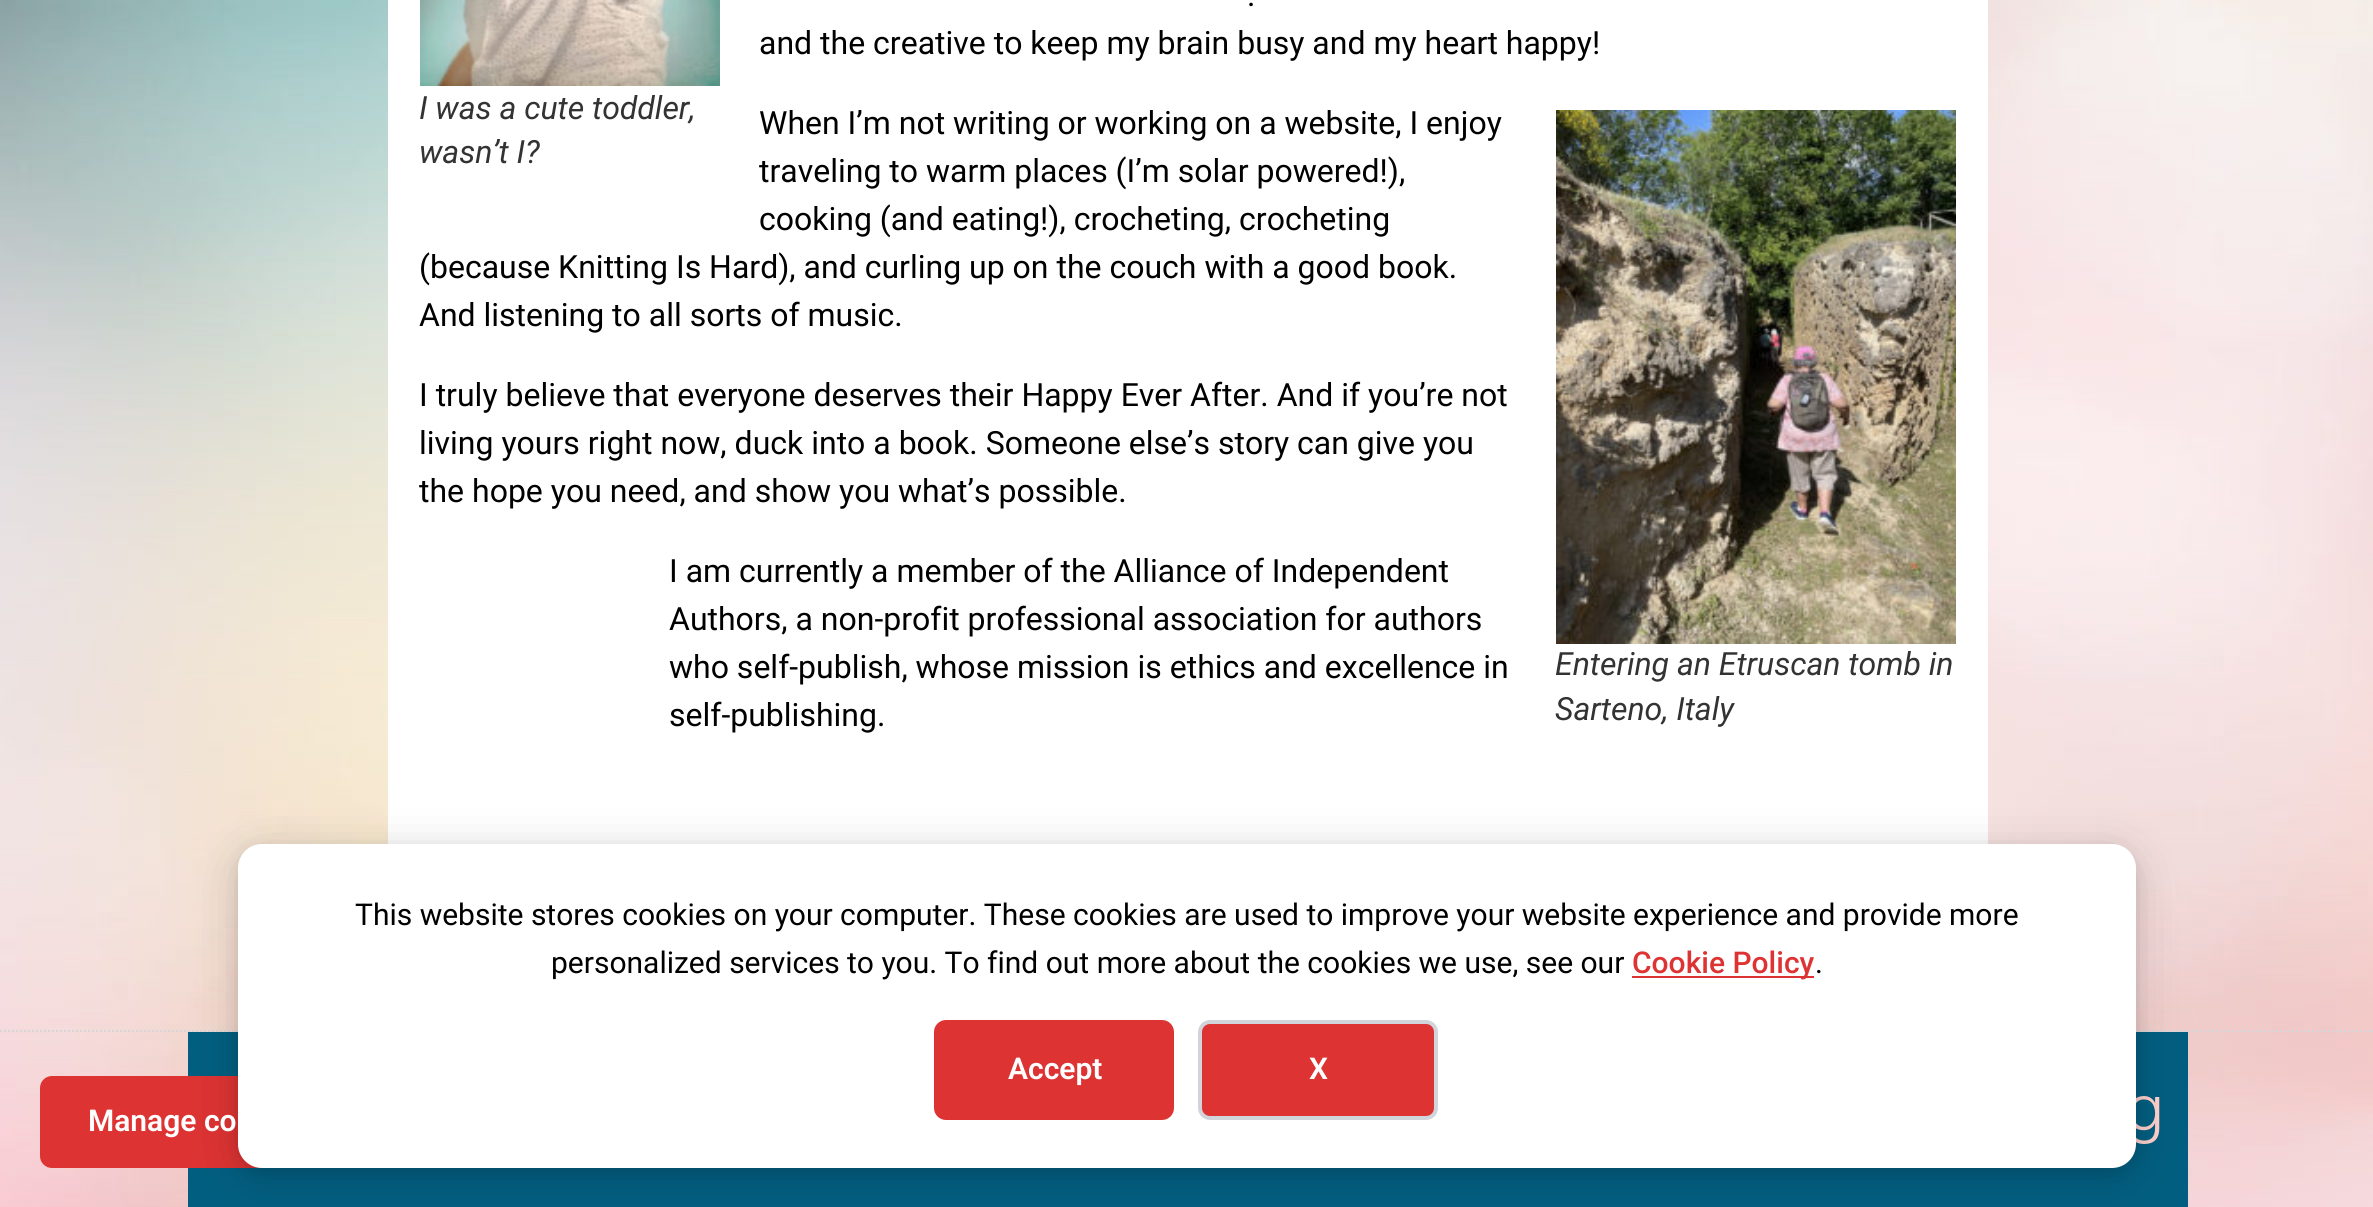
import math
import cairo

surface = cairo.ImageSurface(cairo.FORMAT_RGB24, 2373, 1207)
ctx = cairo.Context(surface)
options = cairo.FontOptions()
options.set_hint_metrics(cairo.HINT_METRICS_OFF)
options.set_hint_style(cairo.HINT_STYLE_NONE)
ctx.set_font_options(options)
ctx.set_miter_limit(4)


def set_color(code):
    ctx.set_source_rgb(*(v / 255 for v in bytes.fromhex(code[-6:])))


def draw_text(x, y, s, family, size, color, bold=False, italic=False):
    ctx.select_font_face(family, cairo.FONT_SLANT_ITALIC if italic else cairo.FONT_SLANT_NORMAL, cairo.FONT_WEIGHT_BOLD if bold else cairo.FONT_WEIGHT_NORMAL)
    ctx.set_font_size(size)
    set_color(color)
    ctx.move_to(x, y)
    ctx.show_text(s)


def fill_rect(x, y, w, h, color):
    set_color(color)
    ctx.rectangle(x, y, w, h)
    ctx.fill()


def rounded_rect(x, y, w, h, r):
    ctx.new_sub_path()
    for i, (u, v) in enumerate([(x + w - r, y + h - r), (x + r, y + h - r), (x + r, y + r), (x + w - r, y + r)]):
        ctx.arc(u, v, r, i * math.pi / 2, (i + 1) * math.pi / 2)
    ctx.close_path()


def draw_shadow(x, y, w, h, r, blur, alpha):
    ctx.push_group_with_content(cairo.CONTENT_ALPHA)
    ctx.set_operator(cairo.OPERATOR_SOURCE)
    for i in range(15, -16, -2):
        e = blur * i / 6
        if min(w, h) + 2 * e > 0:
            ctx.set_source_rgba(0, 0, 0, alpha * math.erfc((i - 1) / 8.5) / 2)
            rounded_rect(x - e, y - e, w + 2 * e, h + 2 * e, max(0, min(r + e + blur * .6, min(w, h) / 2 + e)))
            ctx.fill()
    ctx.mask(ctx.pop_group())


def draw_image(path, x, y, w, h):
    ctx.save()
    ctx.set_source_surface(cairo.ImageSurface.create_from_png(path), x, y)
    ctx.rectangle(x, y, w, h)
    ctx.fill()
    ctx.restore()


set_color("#ffffff")
ctx.paint()
draw_image("assets/img1.png", 0, 0, 2373, 1207)
fill_rect(388, 0, 1600, 844, "#ffffff")
draw_text(1247, 6, ".", "Roboto", 32, "#000000")
draw_text(759, 54, "and the creative to keep my brain busy and my heart happy!", "Roboto", 32, "#000000")
draw_image("assets/img2.png", 420, 0, 300, 86)
draw_text(419, 119, "I was a cute toddler,", "Roboto", 32, "#333333", italic=True)
draw_text(419, 163, "wasn’t I?", "Roboto", 32, "#333333", italic=True)
draw_text(759, 134, "When I’m not writing or working on a website, I enjoy", "Roboto", 32, "#000000")
draw_text(759, 182, "traveling to warm places (I’m solar powered!),", "Roboto", 32, "#000000")
draw_text(759, 230, "cooking (and eating!), crocheting, crocheting", "Roboto", 32, "#000000")
draw_text(419, 278, "(because Knitting Is Hard), and curling up on the couch with a good book.", "Roboto", 32, "#000000")
draw_text(419, 326, "And listening to all sorts of music.", "Roboto", 32, "#000000")
draw_text(419, 406, "I truly believe that everyone deserves their Happy Ever After. And if you’re not", "Roboto", 32, "#000000")
draw_text(419, 454, "living yours right now, duck into a book. Someone else’s story can give you", "Roboto", 32, "#000000")
draw_text(419, 502, "the hope you need, and show you what’s possible.", "Roboto", 32, "#000000")
draw_text(669, 582, "I am currently a member of the Alliance of Independent", "Roboto", 32, "#000000")
draw_text(669, 630, "Authors, a non-profit professional association for authors", "Roboto", 32, "#000000")
draw_text(669, 678, "who self-publish, whose mission is ethics and excellence in", "Roboto", 32, "#000000")
draw_text(669, 726, "self-publishing.", "Roboto", 32, "#000000")
draw_image("assets/img3.png", 1556, 110, 400, 534)
draw_text(1555, 675, "Entering an Etruscan tomb in", "Roboto", 32, "#333333", italic=True)
draw_text(1555, 720, "Sarteno, Italy", "Roboto", 32, "#333333", italic=True)
ctx.new_path()
ctx.move_to(0, 1031)
ctx.line_to(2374, 1031)
set_color("#d6d6d6")
ctx.set_dash([2, 2])
ctx.stroke()
fill_rect(188, 1032, 2000, 175, "#025e80")
draw_image("assets/img4.png", 2136, 1096, 24, 48)
set_color("#dd3333")
rounded_rect(40, 1076, 316, 92, 12)
ctx.fill()
set_color("#000000")
draw_shadow(238, 848, 1898, 324, 24, 8, 0.1)
draw_shadow(238, 852, 1898, 324, 24, 24, 0.15)
set_color("#ffffff")
rounded_rect(238, 844, 1898, 324, 24)
ctx.fill()
draw_text(355, 925, "This website stores cookies on your computer. These cookies are used to improve your website experience and provide more", "Roboto", 30, "#000000")
draw_text(551, 973, "personalized services to you. To find out more about the cookies we use, see our", "Roboto", 30, "#000000")
fill_rect(1632, 976, 182, 2, "#dd3333")
draw_text(1632, 973, "Cookie Policy", "Roboto Medium", 30, "#dd3333")
draw_text(1815, 973, ".", "Roboto", 30, "#000000")
set_color("#dd3333")
rounded_rect(934, 1020, 240, 100, 12)
ctx.fill()
draw_text(1008, 1079, "Accept", "Roboto SemiBold", 30, "#ffffff")
set_color("#dd3333")
rounded_rect(1200, 1022, 236, 96, 10)
ctx.fill_preserve()
set_color("#d1d5db")
ctx.set_line_width(4)
ctx.set_dash([])
ctx.stroke()
draw_text(1309, 1079, "X", "Roboto SemiBold", 30, "#ffffff")
draw_text(88, 1131, "Manage co", "Roboto SemiBold", 30, "#ffffff")
surface.write_to_png("output.png")
